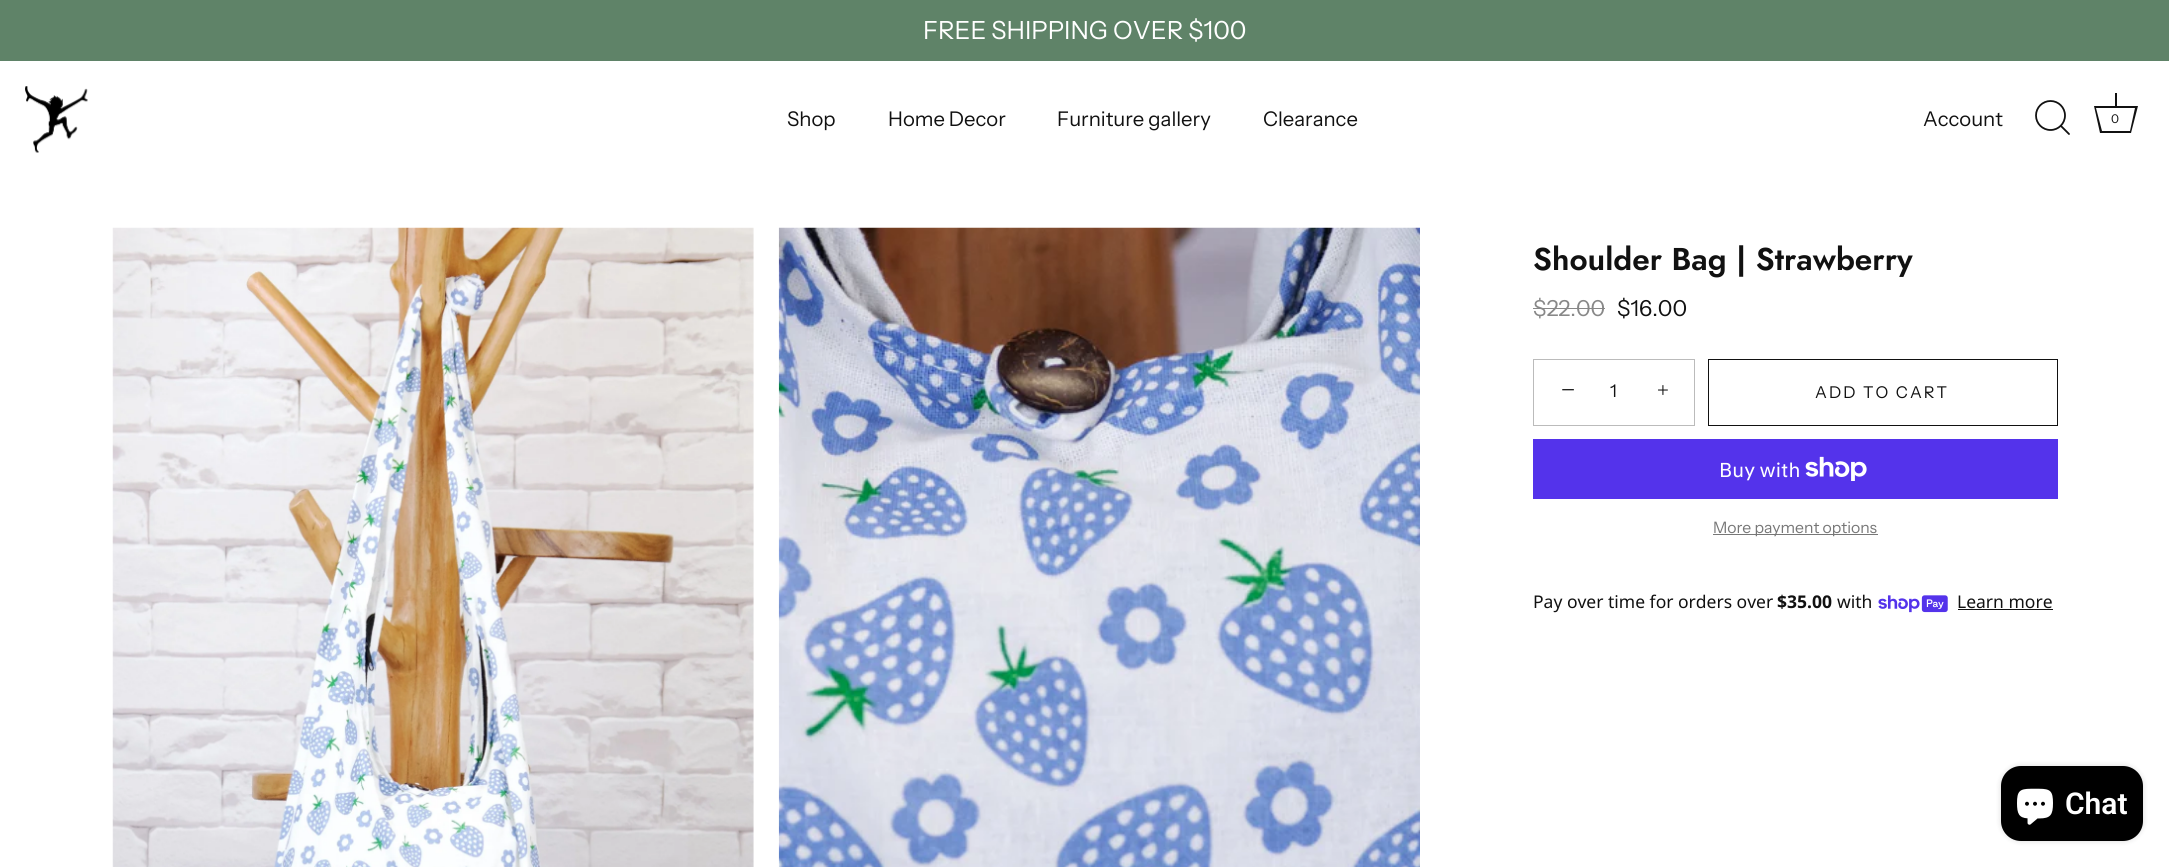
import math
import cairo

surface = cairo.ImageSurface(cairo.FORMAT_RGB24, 2169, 867)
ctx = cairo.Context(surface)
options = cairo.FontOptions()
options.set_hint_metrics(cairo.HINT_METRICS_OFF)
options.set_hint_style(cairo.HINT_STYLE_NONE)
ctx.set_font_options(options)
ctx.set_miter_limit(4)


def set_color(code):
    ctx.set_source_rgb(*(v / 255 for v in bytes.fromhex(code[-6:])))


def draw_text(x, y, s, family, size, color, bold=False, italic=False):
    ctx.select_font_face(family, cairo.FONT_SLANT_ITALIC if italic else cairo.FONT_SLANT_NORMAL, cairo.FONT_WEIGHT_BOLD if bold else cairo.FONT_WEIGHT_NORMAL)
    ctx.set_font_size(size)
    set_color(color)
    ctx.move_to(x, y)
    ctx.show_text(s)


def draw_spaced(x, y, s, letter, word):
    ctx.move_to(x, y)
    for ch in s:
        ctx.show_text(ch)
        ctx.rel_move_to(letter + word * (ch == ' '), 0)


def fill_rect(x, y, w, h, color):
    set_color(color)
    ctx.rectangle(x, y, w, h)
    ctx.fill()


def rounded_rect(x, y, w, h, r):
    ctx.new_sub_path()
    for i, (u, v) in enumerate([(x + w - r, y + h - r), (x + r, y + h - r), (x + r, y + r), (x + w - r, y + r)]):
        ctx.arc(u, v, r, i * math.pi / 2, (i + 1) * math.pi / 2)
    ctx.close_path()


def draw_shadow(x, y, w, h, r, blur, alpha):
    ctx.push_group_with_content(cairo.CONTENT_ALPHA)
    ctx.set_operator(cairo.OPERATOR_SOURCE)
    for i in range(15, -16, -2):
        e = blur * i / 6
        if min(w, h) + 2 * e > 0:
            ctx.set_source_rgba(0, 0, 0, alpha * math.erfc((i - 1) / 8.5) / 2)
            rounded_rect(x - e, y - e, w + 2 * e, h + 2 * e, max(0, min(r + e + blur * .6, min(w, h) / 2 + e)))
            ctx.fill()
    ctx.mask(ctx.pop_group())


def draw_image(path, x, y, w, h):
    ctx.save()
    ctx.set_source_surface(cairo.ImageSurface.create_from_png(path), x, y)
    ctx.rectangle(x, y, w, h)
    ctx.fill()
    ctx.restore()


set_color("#ffffff")
ctx.paint()
fill_rect(0, 0, 2169, 61, "#5f8368")
draw_text(923, 39, "FREE SHIPPING OVER $100", "Instrument Sans", 25, "#ffffff")
draw_image("assets/img1.png", 25, 86, 63, 67)
draw_text(787, 126, "Shop", "Instrument Sans", 20.25, "#111111")
draw_text(888, 126, "Home Decor", "Instrument Sans", 20.25, "#111111")
draw_text(1057, 126, "Furniture gallery", "Instrument Sans", 20.25, "#111111")
draw_text(1263, 126, "Clearance", "Instrument Sans", 20.25, "#111111")
draw_text(1923, 126, "Account", "Instrument Sans", 20.25, "#111111")
ctx.new_path()
ctx.arc(2050.5, 115.5, 14.5, 0, 2 * math.pi)
ctx.set_line_width(1.8)
ctx.stroke()
ctx.new_path()
ctx.move_to(2069, 134)
ctx.line_to(2061, 126)
ctx.set_line_cap(cairo.LINE_CAP_ROUND)
ctx.set_line_join(cairo.LINE_JOIN_ROUND)
ctx.stroke()
fill_rect(2115, 93, 2, 13, "#111111")
ctx.new_path()
ctx.move_to(2135, 108)
ctx.line_to(2130, 131)
ctx.line_to(2102, 131)
ctx.line_to(2096, 108)
ctx.line_to(2135, 108)
ctx.move_to(2138, 106)
ctx.line_to(2094, 106)
ctx.line_to(2100, 133)
ctx.line_to(2131, 133)
ctx.close_path()
ctx.fill()
draw_text(2111, 123, "0", "Instrument Sans", 12, "#111111")
draw_image("assets/img2.png", 112, 227, 642, 640)
draw_image("assets/img3.png", 778, 227, 642, 640)
draw_text(1533, 270, "Shoulder Bag | Strawberry", "Jost SemiBold", 31.5, "#111111")
draw_text(1533, 316, "$22.00", "Instrument Sans", 22, "#888888")
fill_rect(1533, 308, 72, 1, "#888888")
draw_text(1617, 316, "$16.00", "Instrument Sans", 22, "#111111")
ctx.rectangle(1533.5, 359.5, 161, 66)
set_color("#bbbbbb")
ctx.set_line_width(1)
ctx.set_line_cap(cairo.LINE_CAP_BUTT)
ctx.set_line_join(cairo.LINE_JOIN_MITER)
ctx.stroke()
draw_text(1561, 398, "−", "Liberation Serif", 25, "#111111")
ctx.select_font_face("Instrument Sans")
ctx.set_font_size(17.5)
draw_spaced(1610, 397, "1", 1, 0)
draw_text(1657, 397, "+", "Liberation Serif", 21, "#111111")
ctx.rectangle(1708.5, 359.5, 349, 66)
ctx.stroke()
ctx.select_font_face("Instrument Sans")
ctx.set_font_size(16.25)
draw_spaced(1815, 398, "ADD TO CART", 2.1, 0)
fill_rect(1533, 439, 525, 60, "#5433eb")
draw_text(1719, 477, "Buy with", "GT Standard", 20, "#ffffff")
draw_image("assets/img4.png", 1805, 456, 62, 25)
fill_rect(1713, 534, 165, 1, "#777777")
draw_text(1713, 533, "More payment options", "Instrument Sans", 15.75, "#777777")
draw_text(1533, 608, "Pay over time for orders over", "Noto Sans", 17.5, "#111111")
draw_text(1777, 608, "$35.00", "Noto Sans", 17.5, "#111111", bold=True)
draw_text(1837, 608, "with", "Noto Sans", 17.5, "#111111")
draw_image("assets/img5.png", 1878, 595, 70, 18)
draw_text(1957, 608, "Learn more", "Noto Sans", 17.5, "#111111")
fill_rect(1958, 609, 95, 1, "#111111")
set_color("#000000")
draw_shadow(2001, 766, 142, 75, 20, 3, 0.15)
set_color("#000000")
rounded_rect(2001, 766, 142, 75, 20)
ctx.fill()
draw_image("assets/img6.png", 2017, 788, 36, 37)
draw_text(2065, 814, "Chat", "Roboto SemiBold", 30, "#ffffff")
surface.write_to_png("output.png")
